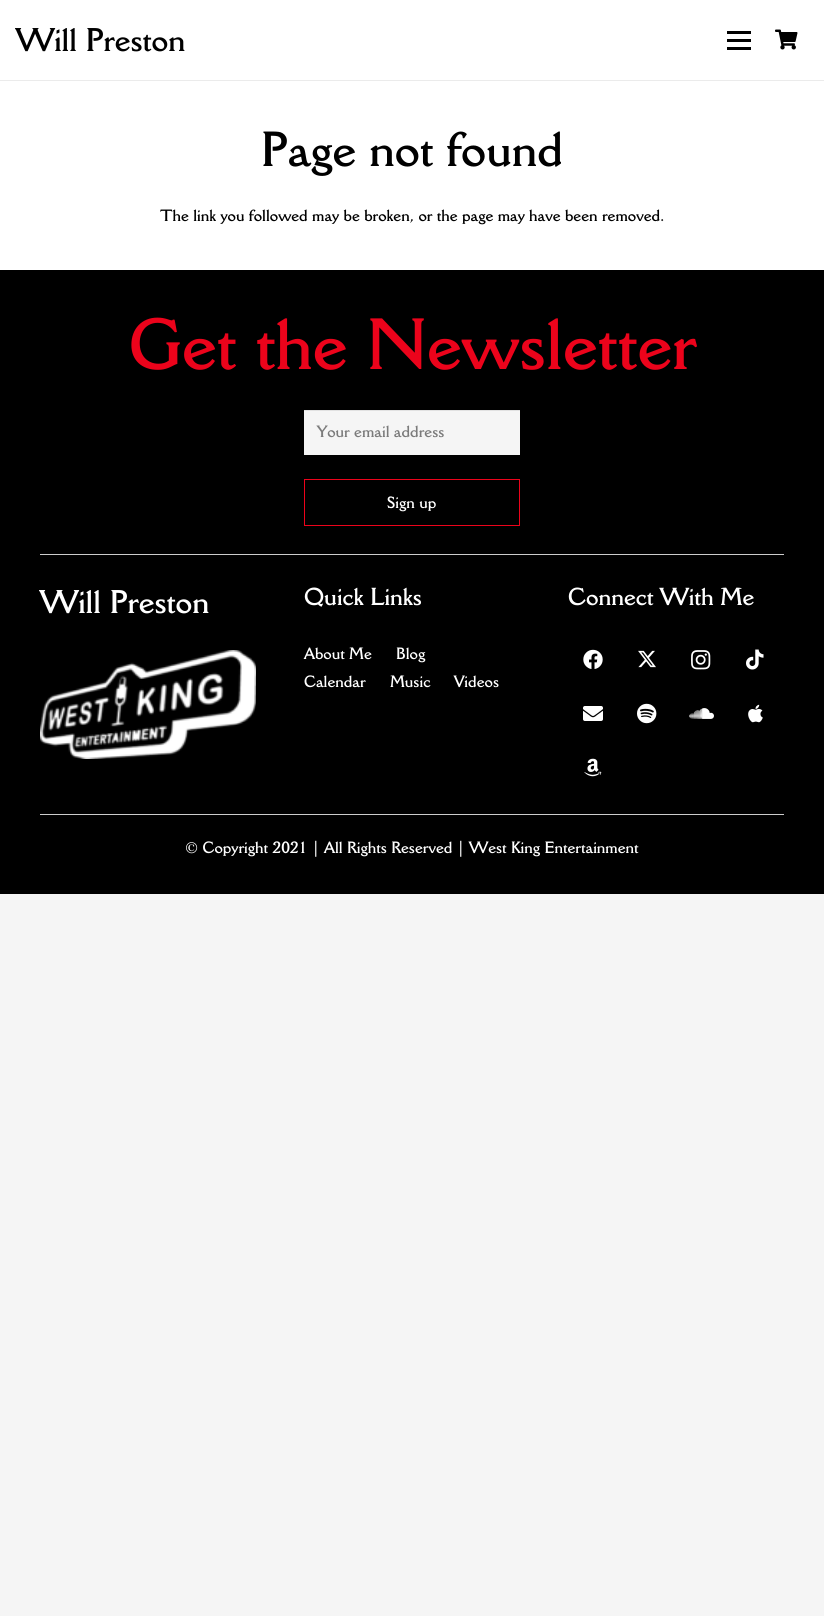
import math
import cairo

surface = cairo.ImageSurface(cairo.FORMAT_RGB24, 824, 1616)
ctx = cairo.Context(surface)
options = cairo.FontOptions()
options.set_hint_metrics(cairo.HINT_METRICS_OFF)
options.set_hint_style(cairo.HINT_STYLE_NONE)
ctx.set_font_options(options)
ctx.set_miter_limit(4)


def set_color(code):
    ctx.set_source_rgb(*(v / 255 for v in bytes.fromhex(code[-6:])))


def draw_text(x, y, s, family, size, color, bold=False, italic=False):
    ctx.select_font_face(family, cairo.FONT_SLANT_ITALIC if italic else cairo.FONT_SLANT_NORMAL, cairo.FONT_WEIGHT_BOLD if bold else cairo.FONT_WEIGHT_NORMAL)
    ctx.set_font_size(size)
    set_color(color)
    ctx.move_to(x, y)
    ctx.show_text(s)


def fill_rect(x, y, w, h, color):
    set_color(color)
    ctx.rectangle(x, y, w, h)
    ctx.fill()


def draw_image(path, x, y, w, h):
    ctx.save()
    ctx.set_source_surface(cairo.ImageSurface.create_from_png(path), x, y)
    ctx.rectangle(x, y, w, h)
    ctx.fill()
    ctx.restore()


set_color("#f5f5f5")
ctx.paint()
fill_rect(0, 0, 824, 270, "#ffffff")
fill_rect(0, 80, 824, 1, "#ebebeb")
draw_text(16, 51, "Will Preston", "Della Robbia", 32, "#000000", bold=True)
fill_rect(727, 39, 24, 3, "#000000")
fill_rect(727, 31, 24, 3, "#000000")
fill_rect(727, 47, 24, 3, "#000000")
draw_image("assets/img1.png", 775, 29, 23, 21)
draw_text(261, 166, "Page not found", "Della Robbia", 48, "#000000", bold=True)
draw_text(160, 221, "The link you followed may be broken, or the page may have been removed.", "Della Robbia", 16, "#000000", bold=True)
fill_rect(0, 270, 824, 624, "#000000")
draw_text(129, 369, "Get the Newsletter", "Della Robbia", 70.5, "#ec031b", bold=True)
fill_rect(304, 411, 216, 44, "#f5f5f5")
fill_rect(304, 410, 216, 1, "#e1e1e1")
draw_text(317, 437, "Your email address", "Della Robbia", 16, "#7b7b7b", bold=True)
ctx.rectangle(304.5, 479.5, 215, 46)
set_color("#ec031b")
ctx.set_line_width(1)
ctx.stroke()
draw_text(387, 508, "Sign up", "Della Robbia", 16, "#ffffff", bold=True)
fill_rect(40, 554, 744, 1, "#cccccc")
draw_text(40, 613, "Will Preston", "Della Robbia", 32, "#ffffff", bold=True)
draw_image("assets/img2.png", 40, 650, 216, 109)
draw_text(304, 605, "Quick Links", "Della Robbia", 24, "#ffffff", bold=True)
draw_text(304, 659, "About Me", "Della Robbia", 16, "#ffffff", bold=True)
draw_text(396, 659, "Blog", "Della Robbia", 16, "#ffffff", bold=True)
draw_text(304, 687, "Calendar", "Della Robbia", 16, "#ffffff", bold=True)
draw_text(390, 687, "Music", "Della Robbia", 16, "#ffffff", bold=True)
draw_text(454, 687, "Videos", "Della Robbia", 16, "#ffffff", bold=True)
draw_text(568, 605, "Connect With Me", "Della Robbia", 24, "#ffffff", bold=True)
draw_image("assets/img3.png", 583, 649, 20, 20)
draw_image("assets/img4.png", 638, 650, 18, 18)
draw_image("assets/img5.png", 691, 650, 20, 20)
draw_image("assets/img6.png", 746, 649, 18, 21)
draw_image("assets/img7.png", 583, 706, 20, 15)
draw_image("assets/img8.png", 637, 703, 20, 21)
draw_image("assets/img9.png", 689, 708, 25, 11)
draw_image("assets/img10.png", 748, 704, 15, 19)
draw_image("assets/img11.png", 584, 758, 18, 19)
fill_rect(40, 814, 744, 1, "#cccccc")
draw_text(185, 853, "© Copyright 2021 | All Rights Reserved | West King Entertainment", "Della Robbia", 16, "#ffffff", bold=True)
surface.write_to_png("output.png")
